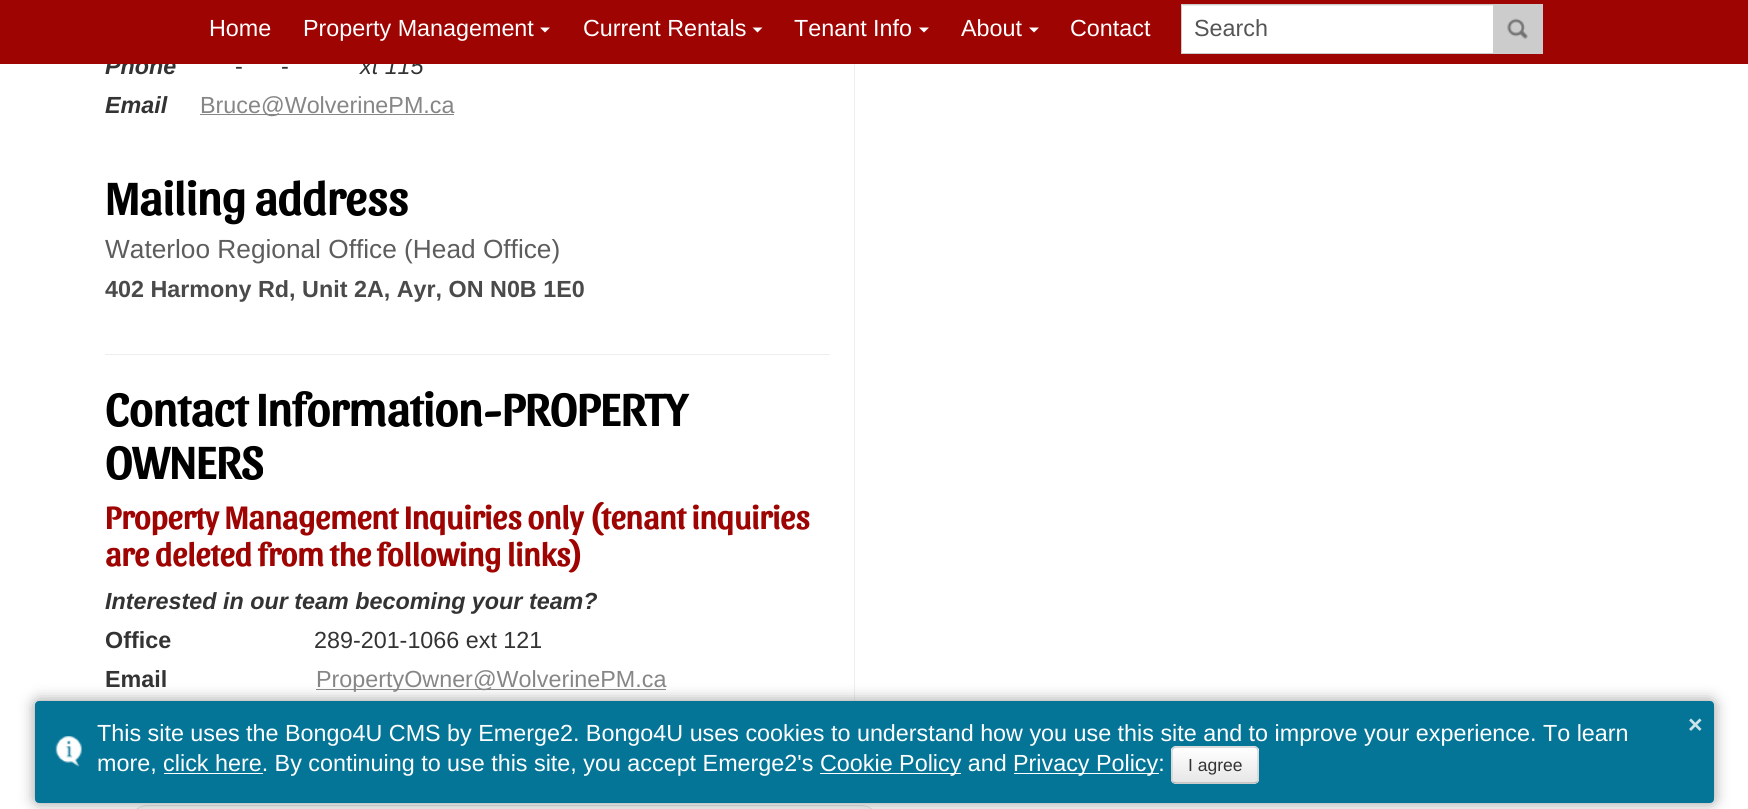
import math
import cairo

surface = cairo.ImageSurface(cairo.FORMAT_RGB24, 1748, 809)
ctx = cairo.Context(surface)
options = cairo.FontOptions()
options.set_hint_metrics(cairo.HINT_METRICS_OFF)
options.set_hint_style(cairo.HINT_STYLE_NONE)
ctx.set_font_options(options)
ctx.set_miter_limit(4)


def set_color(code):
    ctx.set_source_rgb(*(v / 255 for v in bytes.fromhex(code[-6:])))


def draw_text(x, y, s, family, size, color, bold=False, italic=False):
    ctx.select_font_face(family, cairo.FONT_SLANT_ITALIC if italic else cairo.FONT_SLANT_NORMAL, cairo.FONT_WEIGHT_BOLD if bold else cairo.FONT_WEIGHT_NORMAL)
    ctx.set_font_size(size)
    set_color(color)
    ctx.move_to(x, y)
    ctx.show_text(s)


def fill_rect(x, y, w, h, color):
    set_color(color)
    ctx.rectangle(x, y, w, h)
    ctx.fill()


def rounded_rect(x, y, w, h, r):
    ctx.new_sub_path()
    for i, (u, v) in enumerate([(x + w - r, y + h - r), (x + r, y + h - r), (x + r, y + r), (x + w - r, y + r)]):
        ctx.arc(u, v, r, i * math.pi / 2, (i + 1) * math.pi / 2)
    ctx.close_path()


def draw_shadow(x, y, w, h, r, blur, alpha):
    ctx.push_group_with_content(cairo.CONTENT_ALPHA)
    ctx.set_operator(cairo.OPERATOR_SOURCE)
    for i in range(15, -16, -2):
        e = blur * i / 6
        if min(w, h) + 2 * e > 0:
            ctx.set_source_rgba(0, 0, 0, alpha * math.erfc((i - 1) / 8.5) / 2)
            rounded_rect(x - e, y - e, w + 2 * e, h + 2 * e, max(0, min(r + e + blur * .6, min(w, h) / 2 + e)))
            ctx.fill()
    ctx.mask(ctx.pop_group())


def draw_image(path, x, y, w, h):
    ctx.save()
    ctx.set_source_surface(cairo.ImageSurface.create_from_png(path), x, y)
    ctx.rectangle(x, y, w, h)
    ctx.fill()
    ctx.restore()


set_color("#ffffff")
ctx.paint()
draw_text(105, 74, "Phone", "Liberation Sans", 23.33, "#333333", bold=True, italic=True)
draw_text(360, 74, "xt 115", "Liberation Sans", 23.33, "#333333", italic=True)
fill_rect(0, 0, 1748, 64, "#9e0402")
draw_text(209, 36, "Home", "Liberation Sans", 23.33, "#ffffff")
draw_text(303, 36, "Property Management", "Liberation Sans", 23.33, "#ffffff")
ctx.new_path()
ctx.move_to(540, 27.5)
ctx.line_to(550, 27.5)
ctx.line_to(545, 32.5)
ctx.close_path()
ctx.fill()
draw_text(583, 36, "Current Rentals", "Liberation Sans", 23.33, "#ffffff")
ctx.new_path()
ctx.move_to(752.5, 27.5)
ctx.line_to(762.5, 27.5)
ctx.line_to(757.5, 32.5)
ctx.close_path()
ctx.fill()
draw_text(794, 36, "Tenant Info", "Liberation Sans", 23.33, "#ffffff")
ctx.new_path()
ctx.move_to(919, 27.5)
ctx.line_to(929, 27.5)
ctx.line_to(924, 32.5)
ctx.close_path()
ctx.fill()
draw_text(961, 36, "About", "Liberation Sans", 23.33, "#ffffff")
ctx.new_path()
ctx.move_to(1029, 27.5)
ctx.line_to(1039, 27.5)
ctx.line_to(1034, 32.5)
ctx.close_path()
ctx.fill()
draw_text(1070, 36, "Contact", "Liberation Sans", 23.33, "#ffffff")
fill_rect(1182, 5, 311, 48, "#ffffff")
fill_rect(1183, 5, 310, 1, "#ececec")
ctx.rectangle(1181.5, 4.5, 312, 49)
set_color("#cccccc")
ctx.set_line_width(1)
ctx.stroke()
draw_text(1194, 36, "Search", "Liberation Sans", 23.33, "#555555")
fill_rect(1494, 4, 49, 50, "#cccccc")
draw_image("assets/img1.png", 1507, 18, 21, 21)
fill_rect(854, 64, 1, 637, "#eeeeee")
draw_text(235, 74, "-", "Liberation Sans", 23.33, "#333333")
draw_text(281, 74, "-", "Liberation Sans", 23.33, "#333333")
draw_text(105, 113, "Email", "Liberation Sans", 23.33, "#333333", bold=True, italic=True)
fill_rect(200, 114, 254, 1, "#868686")
draw_text(200, 113, "Bruce@WolverinePM.ca", "Liberation Sans", 23.33, "#868686")
draw_text(105, 215, "Mailing address", "Sansita", 46.75, "#000000", bold=True)
draw_text(105, 258, "Waterloo Regional Office (Head Office)", "Liberation Sans", 26.25, "#5d5d5d")
draw_text(105, 297, "402 Harmony Rd, Unit 2A, Ayr, ON N0B 1E0", "Liberation Sans", 23.33, "#4a4a4a", bold=True)
fill_rect(105, 354, 725, 1, "#eeeeee")
draw_text(105, 426, "Contact Information-PROPERTY", "Sansita", 46.75, "#000000", bold=True)
draw_text(105, 479, "OWNERS", "Sansita", 46.75, "#000000", bold=True)
draw_text(105, 529, "Property Management Inquiries only (tenant inquiries", "Sansita", 32.7, "#9e0402", bold=True)
draw_text(105, 566, "are deleted from the following links)", "Sansita", 32.7, "#9e0402", bold=True)
draw_text(105, 609, "Interested in our team becoming your team?", "Liberation Sans", 23.33, "#333333", bold=True, italic=True)
draw_text(105, 648, "Office", "Liberation Sans", 23.33, "#333333", bold=True)
draw_text(314, 648, "289-201-1066 ext 121", "Liberation Sans", 23.33, "#333333")
draw_text(105, 687, "Email", "Liberation Sans", 23.33, "#333333", bold=True)
fill_rect(316, 689, 350, 1, "#868686")
draw_text(316, 687, "PropertyOwner@WolverinePM.ca", "Liberation Sans", 23.33, "#868686")
set_color("#f7f7f7")
rounded_rect(129.5, 805.5, 750, 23, 18.5)
ctx.fill_preserve()
set_color("#dddddd")
ctx.stroke()
set_color("#999999")
draw_shadow(35, 701, 1679, 102, 4, 7.5, 1)
set_color("#047597")
rounded_rect(35, 701, 1679, 102, 4)
ctx.fill()
draw_image("assets/img2.png", 55, 736, 27, 31)
draw_text(97, 741, "This site uses the Bongo4U CMS by Emerge2. Bongo4U uses cookies to understand how you use this site and to improve your experience. To learn", "Liberation Sans", 23.33, "#ffffff")
draw_text(97, 771, "more, click here. By continuing to use this site, you accept Emerge2's", "Liberation Sans", 23.33, "#ffffff")
fill_rect(820, 773, 141, 1, "#ffffff")
draw_text(820, 771, "Cookie Policy and", "Liberation Sans", 23.33, "#ffffff")
fill_rect(1014, 773, 145, 1, "#ffffff")
draw_text(1013, 771, "Privacy Policy:", "Liberation Sans", 23.33, "#ffffff")
set_color("#f5f5f5")
rounded_rect(1171, 746, 88, 38, 5)
ctx.fill()
ctx.save()
rounded_rect(1171, 746, 88, 38, 5)
ctx.clip()
gradient = cairo.LinearGradient(1215, 748, 1215, 783)
gradient.add_color_stop_rgba(0, 1, 1, 1, 1)
gradient.add_color_stop_rgba(1, 0.902, 0.902, 0.902, 1)
ctx.set_source(gradient)
ctx.rectangle(1171, 748, 88, 35)
ctx.fill()
ctx.restore()
ctx.new_path()
ctx.move_to(1257, 782)
ctx.line_to(1254, 783)
ctx.line_to(1176, 783)
ctx.line_to(1173, 782)
set_color("#b3b3b3")
ctx.set_line_width(1.2)
ctx.stroke()
ctx.new_path()
ctx.move_to(1173, 782)
ctx.curve_to(1171, 780, 1172, 776.5, 1172, 774)
ctx.line_to(1172, 765)
ctx.curve_to(1172, 745, 1169, 747, 1189, 747)
ctx.line_to(1241, 747)
ctx.curve_to(1261, 747, 1258, 745, 1258, 765)
ctx.line_to(1258, 774)
ctx.curve_to(1258, 776.5, 1259, 780, 1257, 782)
set_color("#cccccc")
ctx.stroke()
draw_text(1188, 771, "I agree", "Liberation Sans", 17.5, "#333333")
fill_rect(164, 773, 99, 1, "#ffffff")
draw_text(1688, 733, "×", "Liberation Sans", 25, "#cde3ea", bold=True)
surface.write_to_png("output.png")
